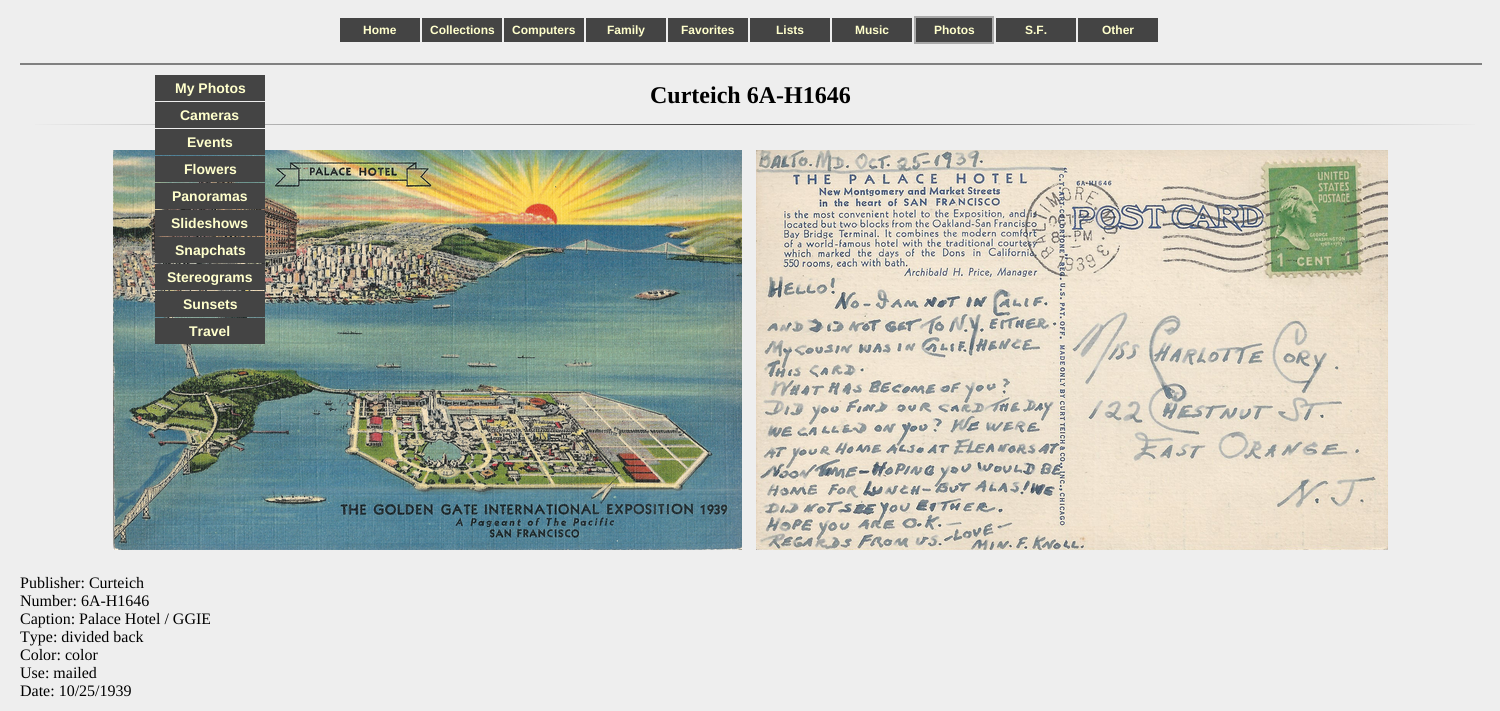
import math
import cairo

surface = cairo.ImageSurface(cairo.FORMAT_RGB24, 1500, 711)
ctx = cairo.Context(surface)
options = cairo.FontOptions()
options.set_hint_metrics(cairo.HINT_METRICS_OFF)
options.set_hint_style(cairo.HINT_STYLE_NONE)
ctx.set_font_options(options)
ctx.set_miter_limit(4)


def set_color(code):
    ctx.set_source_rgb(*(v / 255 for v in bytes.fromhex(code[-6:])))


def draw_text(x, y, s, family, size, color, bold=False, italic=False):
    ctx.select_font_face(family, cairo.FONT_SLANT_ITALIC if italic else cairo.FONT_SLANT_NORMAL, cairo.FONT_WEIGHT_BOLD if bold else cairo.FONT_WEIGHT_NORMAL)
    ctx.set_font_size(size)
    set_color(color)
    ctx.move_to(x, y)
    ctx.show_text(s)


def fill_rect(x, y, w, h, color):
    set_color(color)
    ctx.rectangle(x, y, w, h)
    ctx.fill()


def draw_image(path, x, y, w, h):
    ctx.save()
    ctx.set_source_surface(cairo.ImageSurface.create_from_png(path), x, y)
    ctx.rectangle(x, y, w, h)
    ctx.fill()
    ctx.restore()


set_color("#eeeeee")
ctx.paint()
fill_rect(340, 18, 80, 24, "#444444")
draw_text(363, 34, "Home", "Liberation Sans", 12, "#ffffcc", bold=True)
fill_rect(422, 18, 80, 24, "#444444")
draw_text(430, 34, "Collections", "Liberation Sans", 12, "#ffffcc", bold=True)
fill_rect(504, 18, 80, 24, "#444444")
draw_text(512, 34, "Computers", "Liberation Sans", 12, "#ffffcc", bold=True)
fill_rect(586, 18, 80, 24, "#444444")
draw_text(607, 34, "Family", "Liberation Sans", 12, "#ffffcc", bold=True)
fill_rect(668, 18, 80, 24, "#444444")
draw_text(681, 34, "Favorites", "Liberation Sans", 12, "#ffffcc", bold=True)
fill_rect(750, 18, 80, 24, "#444444")
draw_text(776, 34, "Lists", "Liberation Sans", 12, "#ffffcc", bold=True)
fill_rect(832, 18, 80, 24, "#444444")
draw_text(855, 34, "Music", "Liberation Sans", 12, "#ffffcc", bold=True)
ctx.rectangle(915, 17, 78, 26)
set_color("#aaaaaa")
ctx.stroke()
fill_rect(916, 18, 76, 24, "#444444")
draw_text(934, 34, "Photos", "Liberation Sans", 12, "#ffffcc", bold=True)
fill_rect(996, 18, 80, 24, "#444444")
draw_text(1025, 34, "S.F.", "Liberation Sans", 12, "#ffffcc", bold=True)
fill_rect(1078, 18, 80, 24, "#444444")
draw_text(1102, 34, "Other", "Liberation Sans", 12, "#ffffcc", bold=True)
fill_rect(20, 63, 1462, 2, "#808080")
fill_rect(155, 75, 110, 26, "#444444")
draw_text(175, 93, "My Photos", "Liberation Sans", 14, "#ffffcc", bold=True)
gradient = cairo.LinearGradient(25, 125, 1485, 124)
gradient.add_color_stop_rgba(0, 0.933, 0.933, 0.933, 1)
gradient.add_color_stop_rgba(0.5, 0.235, 0.235, 0.235, 1)
gradient.add_color_stop_rgba(1, 0.933, 0.933, 0.933, 1)
ctx.set_source(gradient)
ctx.rectangle(35, 124, 1440, 1)
ctx.fill()
fill_rect(155, 102, 110, 26, "#444444")
draw_text(180, 120, "Cameras", "Liberation Sans", 14, "#ffffcc", bold=True)
draw_image("assets/img1.png", 113, 150, 629, 400)
fill_rect(155, 129, 110, 26, "#444444")
draw_text(187, 147, "Events", "Liberation Sans", 14, "#ffffcc", bold=True)
fill_rect(155, 156, 110, 26, "#444444")
draw_text(184, 174, "Flowers", "Liberation Sans", 14, "#ffffcc", bold=True)
fill_rect(155, 183, 110, 26, "#444444")
draw_text(172, 201, "Panoramas", "Liberation Sans", 14, "#ffffcc", bold=True)
fill_rect(155, 210, 110, 26, "#444444")
draw_text(171, 228, "Slideshows", "Liberation Sans", 14, "#ffffcc", bold=True)
fill_rect(155, 237, 110, 26, "#444444")
draw_text(175, 255, "Snapchats", "Liberation Sans", 14, "#ffffcc", bold=True)
fill_rect(155, 264, 110, 26, "#444444")
draw_text(167, 282, "Stereograms", "Liberation Sans", 14, "#ffffcc", bold=True)
fill_rect(155, 291, 110, 26, "#444444")
draw_text(183, 309, "Sunsets", "Liberation Sans", 14, "#ffffcc", bold=True)
fill_rect(155, 318, 110, 26, "#444444")
draw_text(189, 336, "Travel", "Liberation Sans", 14, "#ffffcc", bold=True)
draw_text(650, 103, "Curteich 6A-H1646", "Liberation Serif", 24, "#000000", bold=True)
draw_image("assets/img2.png", 756, 150, 632, 400)
draw_text(20, 588, "Publisher: Curteich", "Liberation Serif", 16, "#000000")
draw_text(20, 606, "Number: 6A-H1646", "Liberation Serif", 16, "#000000")
draw_text(20, 624, "Caption: Palace Hotel / GGIE", "Liberation Serif", 16, "#000000")
draw_text(20, 642, "Type: divided back", "Liberation Serif", 16, "#000000")
draw_text(20, 660, "Color: color", "Liberation Serif", 16, "#000000")
draw_text(20, 678, "Use: mailed", "Liberation Serif", 16, "#000000")
draw_text(20, 696, "Date: 10/25/1939", "Liberation Serif", 16, "#000000")
surface.write_to_png("output.png")
